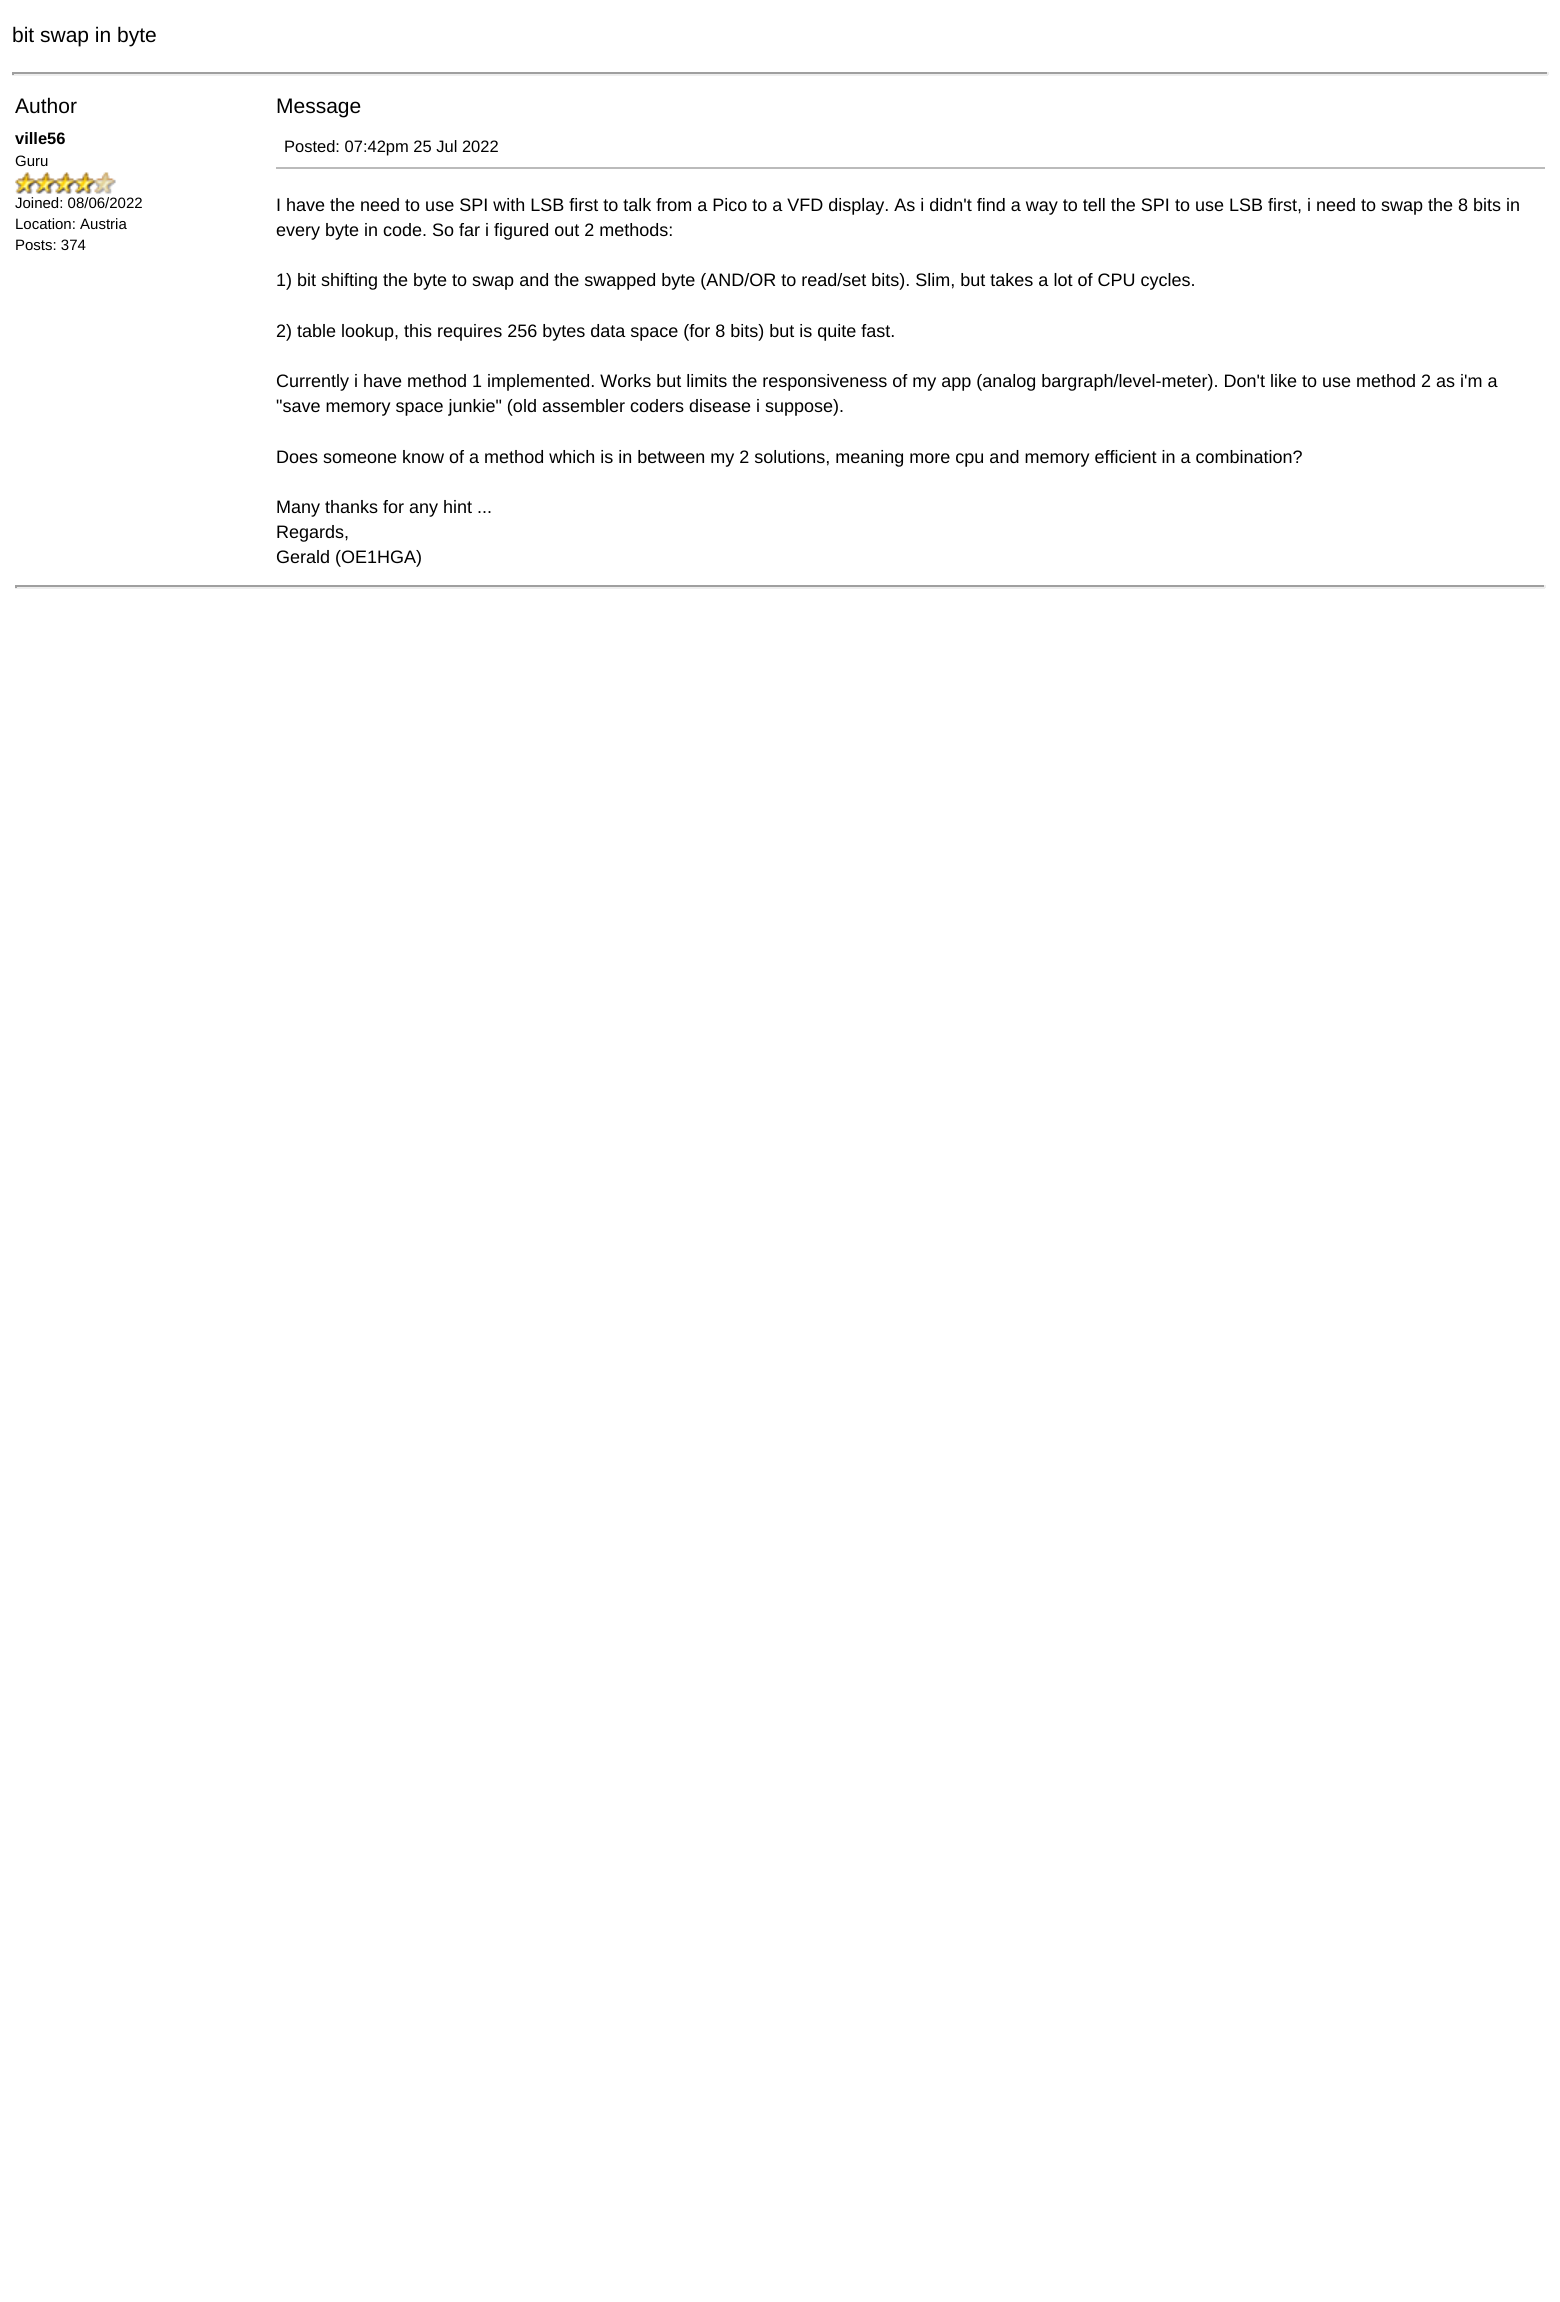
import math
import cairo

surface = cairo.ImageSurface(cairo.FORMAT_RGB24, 1560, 2302)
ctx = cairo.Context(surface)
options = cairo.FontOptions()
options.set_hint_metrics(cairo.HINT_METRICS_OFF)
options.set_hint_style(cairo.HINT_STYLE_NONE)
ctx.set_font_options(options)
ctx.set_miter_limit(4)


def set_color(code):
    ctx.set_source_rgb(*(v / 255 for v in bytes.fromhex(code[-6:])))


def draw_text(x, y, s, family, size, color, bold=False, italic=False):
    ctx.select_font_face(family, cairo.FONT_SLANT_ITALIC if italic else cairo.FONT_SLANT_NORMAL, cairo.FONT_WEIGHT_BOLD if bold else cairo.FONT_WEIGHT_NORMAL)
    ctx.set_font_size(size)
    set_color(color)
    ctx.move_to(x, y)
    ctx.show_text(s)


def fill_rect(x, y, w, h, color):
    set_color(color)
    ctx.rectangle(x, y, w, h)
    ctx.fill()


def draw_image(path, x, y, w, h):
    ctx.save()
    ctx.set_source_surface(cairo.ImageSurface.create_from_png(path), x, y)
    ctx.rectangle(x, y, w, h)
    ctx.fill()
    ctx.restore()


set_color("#ffffff")
ctx.paint()
draw_text(12, 42, "bit swap in byte", "Liberation Sans", 21, "#000000")
fill_rect(12, 72, 1536, 2, "#9f9f9f")
fill_rect(1547, 72, 2, 3, "#eeeeee")
fill_rect(12, 74, 1536, 2, "#eeeeee")
fill_rect(12, 72, 2, 3, "#9f9f9f")
draw_text(15, 113, "Author", "Liberation Sans", 21, "#000000")
draw_text(276, 113, "Message", "Liberation Sans", 21, "#000000")
draw_text(15, 144, "ville56", "Liberation Sans", 16.5, "#000000", bold=True)
draw_text(15, 166, "Guru", "Liberation Sans", 15, "#000000")
draw_image("assets/img1.png", 15, 172, 101, 22)
draw_text(15, 208, "Joined: 08/06/2022", "Liberation Sans", 15, "#000000")
draw_text(15, 229, "Location: Austria", "Liberation Sans", 15, "#000000")
draw_text(15, 250, "Posts: 374", "Liberation Sans", 15, "#000000")
fill_rect(276, 167, 1269, 2, "#bbbbbb")
draw_text(284, 152, "Posted: 07:42pm 25 Jul 2022", "Liberation Sans", 16.5, "#000000")
draw_text(276, 211, "I have the need to use SPI with LSB first to talk from a Pico to a VFD display. As i didn't find a way to tell the SPI to use LSB first, i need to swap the 8 bits in", "Liberation Sans", 18, "#000000")
draw_text(276, 236, "every byte in code. So far i figured out 2 methods:", "Liberation Sans", 18, "#000000")
draw_text(276, 286, "1) bit shifting the byte to swap and the swapped byte (AND/OR to read/set bits). Slim, but takes a lot of CPU cycles.", "Liberation Sans", 18, "#000000")
draw_text(276, 337, "2) table lookup, this requires 256 bytes data space (for 8 bits) but is quite fast.", "Liberation Sans", 18, "#000000")
draw_text(276, 387, "Currently i have method 1 implemented. Works but limits the responsiveness of my app (analog bargraph/level-meter). Don't like to use method 2 as i'm a", "Liberation Sans", 18, "#000000")
draw_text(276, 412, "\"save memory space junkie\" (old assembler coders disease i suppose).", "Liberation Sans", 18, "#000000")
draw_text(276, 463, "Does someone know of a method which is in between my 2 solutions, meaning more cpu and memory efficient in a combination?", "Liberation Sans", 18, "#000000")
draw_text(276, 513, "Many thanks for any hint ...", "Liberation Sans", 18, "#000000")
draw_text(276, 538, "Regards,", "Liberation Sans", 18, "#000000")
draw_text(276, 563, "Gerald (OE1HGA)", "Liberation Sans", 18, "#000000")
fill_rect(15, 585, 1530, 2, "#9f9f9f")
fill_rect(1544, 585, 2, 3, "#eeeeee")
fill_rect(15, 587, 1530, 2, "#eeeeee")
fill_rect(15, 585, 2, 3, "#9f9f9f")
surface.write_to_png("output.png")
